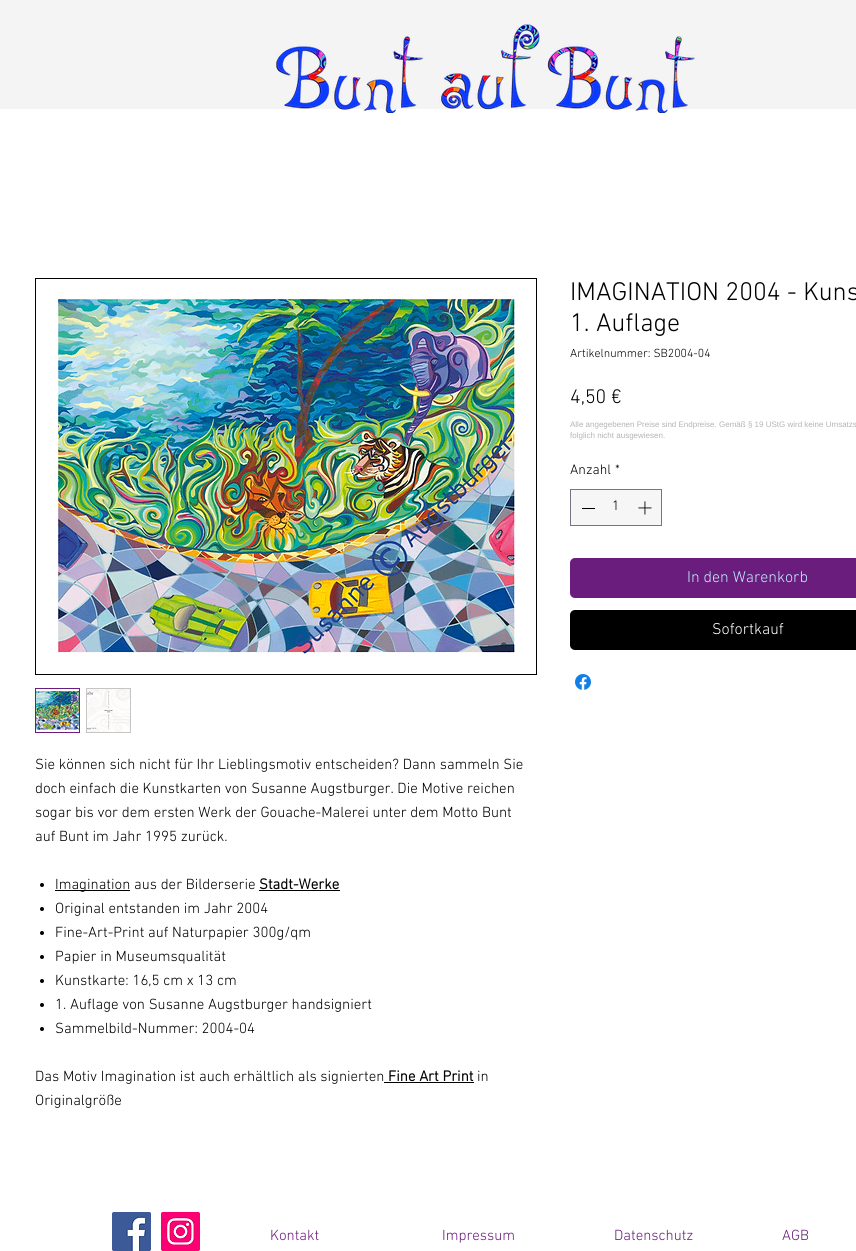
import math
import cairo

surface = cairo.ImageSurface(cairo.FORMAT_RGB24, 856, 1251)
ctx = cairo.Context(surface)
options = cairo.FontOptions()
options.set_hint_metrics(cairo.HINT_METRICS_OFF)
options.set_hint_style(cairo.HINT_STYLE_NONE)
ctx.set_font_options(options)
ctx.set_miter_limit(4)


def set_color(code):
    ctx.set_source_rgb(*(v / 255 for v in bytes.fromhex(code[-6:])))


def draw_text(x, y, s, family, size, color, bold=False, italic=False):
    ctx.select_font_face(family, cairo.FONT_SLANT_ITALIC if italic else cairo.FONT_SLANT_NORMAL, cairo.FONT_WEIGHT_BOLD if bold else cairo.FONT_WEIGHT_NORMAL)
    ctx.set_font_size(size)
    set_color(color)
    ctx.move_to(x, y)
    ctx.show_text(s)


def fill_rect(x, y, w, h, color):
    set_color(color)
    ctx.rectangle(x, y, w, h)
    ctx.fill()


def rounded_rect(x, y, w, h, r):
    ctx.new_sub_path()
    for i, (u, v) in enumerate([(x + w - r, y + h - r), (x + r, y + h - r), (x + r, y + r), (x + w - r, y + r)]):
        ctx.arc(u, v, r, i * math.pi / 2, (i + 1) * math.pi / 2)
    ctx.close_path()


def draw_image(path, x, y, w, h):
    ctx.save()
    ctx.set_source_surface(cairo.ImageSurface.create_from_png(path), x, y)
    ctx.rectangle(x, y, w, h)
    ctx.fill()
    ctx.restore()


set_color("#ffffff")
ctx.paint()
fill_rect(0, 0, 856, 109, "#f4f4f4")
draw_image("assets/img1.png", 276, 24, 419, 89)
draw_text(570, 300, "IMAGINATION 2004 - Kuns", "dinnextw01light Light", 26, "#000000")
draw_text(570, 331, "1. Auflage", "dinnextw01light Light", 26, "#000000")
draw_text(570, 357, "Artikelnummer: SB2004-04", "dinnextw01light Light", 12, "#000000")
draw_text(570, 403, "4,50 €", "dinnextw01light Light", 20, "#000000")
draw_text(570, 427, "Alle angegebenen Preise sind Endpreise. Gemäß § 19 UStG wird keine Umsatzs", "Liberation Sans", 8, "#b4b4b4")
draw_text(570, 438, "folglich nicht ausgewiesen.", "Liberation Sans", 8, "#b4b4b4")
draw_text(570, 474, "Anzahl", "dinnextw01light Light", 14, "#000000")
draw_text(615, 474, "*", "dinnextw01light Light", 14, "#000000")
set_color("#f6f6f6")
ctx.rectangle(570.5, 489.5, 91, 36)
ctx.fill_preserve()
set_color("#7a7285")
ctx.set_line_width(1)
ctx.stroke()
fill_rect(582, 508, 13, 1, "#000000")
draw_text(612, 510, "1", "dinnextw01light Light", 14, "#000000")
draw_image("assets/img2.png", 638, 501, 14, 14)
set_color("#6a1d7d")
rounded_rect(570, 558, 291, 40, 5)
ctx.fill()
draw_text(687, 582, "In den Warenkorb", "dinnextw01light Light", 16, "#bde9fb")
set_color("#000000")
rounded_rect(570, 610, 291, 40, 5)
ctx.fill()
draw_text(712, 634, "Sofortkauf", "dinnextw01light Light", 16, "#ffffff")
draw_image("assets/img3.png", 575, 674, 16, 16)
ctx.rectangle(35.5, 278.5, 501, 396)
set_color("#000000")
ctx.stroke()
draw_image("assets/img4.png", 58, 298, 457, 356)
ctx.rectangle(35.5, 688.5, 44, 44)
set_color("#6a1d7d")
ctx.stroke()
draw_image("assets/img5.png", 36, 689, 43, 43)
fill_rect(86, 688, 45, 45, "#c5c5c5")
draw_image("assets/img6.png", 87, 689, 43, 43)
draw_text(35, 769, "Sie können sich nicht für Ihr Lieblingsmotiv entscheiden? Dann sammeln Sie", "dinnextw01light Light", 15, "#000000")
draw_text(35, 793, "doch einfach die Kunstkarten von Susanne Augstburger. Die Motive reichen", "dinnextw01light Light", 15, "#000000")
draw_text(35, 817, "sogar bis vor dem ersten Werk der Gouache-Malerei unter dem Motto Bunt", "dinnextw01light Light", 15, "#000000")
draw_text(35, 841, "auf Bunt im Jahr 1995 zurück.", "dinnextw01light Light", 15, "#000000")
ctx.new_path()
ctx.arc(42, 885, 2, 0, 2 * math.pi)
ctx.fill()
fill_rect(55, 890, 75, 1, "#000000")
draw_text(55, 889, "Imagination aus der Bilderserie", "dinnextw01light Light", 15, "#000000")
draw_text(259, 889, "Stadt-Werke", "dinnextw01light", 15, "#000000", bold=True)
fill_rect(259, 890, 81, 1, "#000000")
ctx.new_path()
ctx.arc(42, 909, 2, 0, 2 * math.pi)
ctx.fill()
draw_text(55, 913, "Original entstanden im Jahr 2004", "dinnextw01light Light", 15, "#000000")
ctx.new_path()
ctx.arc(42, 933, 2, 0, 2 * math.pi)
ctx.fill()
draw_text(55, 937, "Fine-Art-Print auf Naturpapier 300g/qm", "dinnextw01light Light", 15, "#000000")
ctx.new_path()
ctx.arc(42, 957, 2, 0, 2 * math.pi)
ctx.fill()
draw_text(55, 961, "Papier in Museumsqualität", "dinnextw01light Light", 15, "#000000")
ctx.new_path()
ctx.arc(42, 981, 2, 0, 2 * math.pi)
ctx.fill()
draw_text(55, 985, "Kunstkarte: 16,5 cm x 13 cm", "dinnextw01light Light", 15, "#000000")
ctx.new_path()
ctx.arc(42, 1005, 2, 0, 2 * math.pi)
ctx.fill()
draw_text(55, 1009, "1. Auflage von Susanne Augstburger handsigniert", "dinnextw01light Light", 15, "#000000")
ctx.new_path()
ctx.arc(42, 1029, 2, 0, 2 * math.pi)
ctx.fill()
draw_text(55, 1033, "Sammelbild-Nummer: 2004-04", "dinnextw01light Light", 15, "#000000")
draw_text(35, 1081, "Das Motiv Imagination ist auch erhältlich als signierten", "dinnextw01light Light", 15, "#000000")
draw_text(388, 1081, "Fine Art Print", "dinnextw01light", 15, "#000000", bold=True)
draw_text(477, 1081, "in", "dinnextw01light Light", 15, "#000000")
fill_rect(384, 1082, 90, 1, "#000000")
draw_text(35, 1105, "Originalgröße", "dinnextw01light Light", 15, "#000000")
draw_image("assets/img7.png", 112, 1212, 39, 39)
draw_image("assets/img8.png", 161, 1212, 39, 39)
draw_text(270, 1240, "Kontakt", "dinnextw01light Light", 15, "#6a1d7d")
draw_text(442, 1240, "Impressum", "dinnextw01light Light", 15, "#6a1d7d")
draw_text(614, 1240, "Datenschutz", "dinnextw01light Light", 15, "#6a1d7d")
draw_text(782, 1240, "AGB", "dinnextw01light Light", 15, "#6a1d7d")
surface.write_to_png("output.png")
